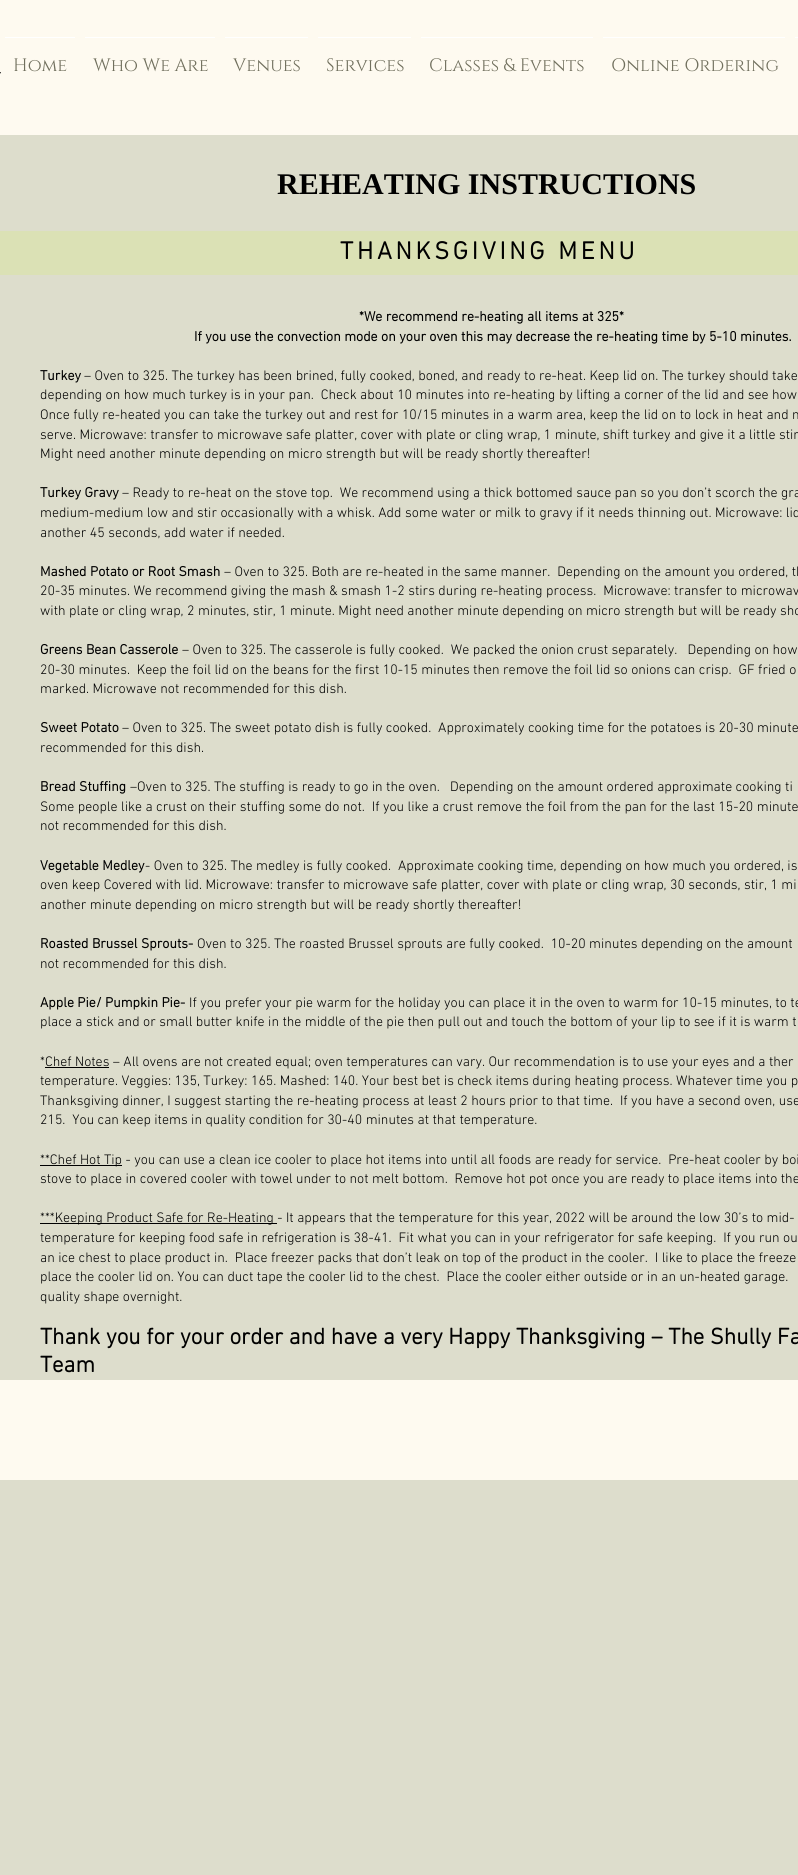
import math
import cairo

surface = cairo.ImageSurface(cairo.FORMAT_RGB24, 798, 1875)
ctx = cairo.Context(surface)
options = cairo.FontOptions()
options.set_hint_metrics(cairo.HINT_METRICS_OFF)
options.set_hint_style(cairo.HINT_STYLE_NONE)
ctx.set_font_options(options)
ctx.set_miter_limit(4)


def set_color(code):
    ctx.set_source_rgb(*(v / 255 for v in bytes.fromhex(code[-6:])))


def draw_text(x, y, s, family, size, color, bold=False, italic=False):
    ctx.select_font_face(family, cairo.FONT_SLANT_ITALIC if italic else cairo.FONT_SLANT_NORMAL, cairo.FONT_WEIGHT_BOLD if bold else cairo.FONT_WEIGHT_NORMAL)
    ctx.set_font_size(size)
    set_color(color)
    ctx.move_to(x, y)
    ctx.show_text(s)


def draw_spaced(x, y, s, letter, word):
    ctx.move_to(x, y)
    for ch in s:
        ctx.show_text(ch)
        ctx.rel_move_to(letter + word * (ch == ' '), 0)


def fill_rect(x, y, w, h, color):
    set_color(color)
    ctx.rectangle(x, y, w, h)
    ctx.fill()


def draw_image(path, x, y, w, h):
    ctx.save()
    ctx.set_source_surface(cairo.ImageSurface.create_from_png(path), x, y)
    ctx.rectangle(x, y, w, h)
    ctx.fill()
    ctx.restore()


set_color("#ddddcc")
ctx.paint()
fill_rect(0, 0, 798, 135, "#fefaf0")
fill_rect(795, 37, 3, 1, "#ffffff")
fill_rect(5, 37, 70, 1, "#ffffff")
draw_text(13, 71, "Home", "Cinzel", 18, "#706f5d")
fill_rect(85, 37, 130, 1, "#ffffff")
draw_text(93, 71, "Who We Are", "Cinzel", 18, "#706f5d")
fill_rect(225, 37, 83, 1, "#ffffff")
draw_text(233, 71, "Venues", "Cinzel", 18, "#706f5d")
fill_rect(318, 37, 93, 1, "#ffffff")
draw_text(326, 71, "Services", "Cinzel", 18, "#706f5d")
fill_rect(421, 37, 172, 1, "#ffffff")
draw_text(429, 71, "Classes & Events", "Cinzel", 18, "#706f5d")
fill_rect(603, 37, 182, 1, "#ffffff")
draw_text(611, 71, "Online Ordering", "Cinzel", 18, "#706f5d")
draw_image("assets/img1.png", 0, 72, 1, 2)
draw_text(277, 194, "REHEATING INSTRUCTIONS", "Liberation Serif", 30, "#000000", bold=True)
fill_rect(0, 231, 798, 44, "#dbe1b5")
ctx.select_font_face("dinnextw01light", cairo.FONT_SLANT_NORMAL, cairo.FONT_WEIGHT_BOLD)
ctx.set_font_size(25)
set_color("#000000")
draw_spaced(340, 259, "THANKSGIVING MENU", 3.75, 0)
draw_text(359, 321, "*We recommend re-heating all items at 325*", "dinnextw01light", 14, "#000000", bold=True)
draw_text(194, 341, "If you use the convection mode on your oven this may decrease the re-heating time by 5-10 minutes.", "dinnextw01light", 14, "#000000", bold=True)
draw_text(40, 380, "Turkey", "dinnextw01light", 14, "#000000", bold=True)
draw_text(84, 380, "– Oven to 325. The turkey has been brined, fully cooked, boned, and ready to re-heat. Keep lid on. The turkey should take", "dinnextw01light Light", 14, "#000000")
draw_text(40, 399, "depending on how much turkey is in your pan.  Check about 10 minutes into re-heating by lifting a corner of the lid and see how", "dinnextw01light Light", 14, "#000000")
draw_text(40, 419, "Once fully re-heated you can take the turkey out and rest for 10/15 minutes in a warm area, keep the lid on to lock in heat and m", "dinnextw01light Light", 14, "#000000")
draw_text(40, 439, "serve. Microwave: transfer to microwave safe platter, cover with plate or cling wrap, 1 minute, shift turkey and give it a little stir", "dinnextw01light Light", 14, "#000000")
draw_text(40, 458, "Might need another minute depending on micro strength but will be ready shortly thereafter!", "dinnextw01light Light", 14, "#000000")
draw_text(40, 497, "Turkey Gravy", "dinnextw01light", 14, "#000000", bold=True)
draw_text(122, 497, "– Ready to re-heat on the stove top.  We recommend using a thick bottomed sauce pan so you don’t scorch the gra", "dinnextw01light Light", 14, "#000000")
draw_text(40, 517, "medium-medium low and stir occasionally with a whisk. Add some water or milk to gravy if it needs thinning out. Microwave: lid", "dinnextw01light Light", 14, "#000000")
draw_text(40, 537, "another 45 seconds, add water if needed.", "dinnextw01light Light", 14, "#000000")
draw_text(40, 576, "Mashed Potato or Root Smash", "dinnextw01light", 14, "#000000", bold=True)
draw_text(224, 576, "– Oven to 325. Both are re-heated in the same manner.  Depending on the amount you ordered, th", "dinnextw01light Light", 14, "#000000")
draw_text(40, 595, "20-35 minutes. We recommend giving the mash & smash 1-2 stirs during re-heating process.  Microwave: transfer to microwav", "dinnextw01light Light", 14, "#000000")
draw_text(40, 615, "with plate or cling wrap, 2 minutes, stir, 1 minute. Might need another minute depending on micro strength but will be ready sho", "dinnextw01light Light", 14, "#000000")
draw_text(40, 654, "Greens Bean Casserole", "dinnextw01light", 14, "#000000", bold=True)
draw_text(182, 654, "– Oven to 325. The casserole is fully cooked.  We packed the onion crust separately.   Depending on how", "dinnextw01light Light", 14, "#000000")
draw_text(40, 674, "20-30 minutes.  Keep the foil lid on the beans for the first 10-15 minutes then remove the foil lid so onions can crisp.  GF fried o", "dinnextw01light Light", 14, "#000000")
draw_text(40, 693, "marked. Microwave not recommended for this dish.", "dinnextw01light Light", 14, "#000000")
draw_text(40, 732, "Sweet Potato", "dinnextw01light", 14, "#000000", bold=True)
draw_text(122, 732, "– Oven to 325. The sweet potato dish is fully cooked.  Approximately cooking time for the potatoes is 20-30 minute", "dinnextw01light Light", 14, "#000000")
draw_text(40, 752, "recommended for this dish.", "dinnextw01light Light", 14, "#000000")
draw_text(40, 791, "Bread Stuffing", "dinnextw01light", 14, "#000000", bold=True)
draw_text(130, 791, "–Oven to 325. The stuffing is ready to go in the oven.   Depending on the amount ordered approximate cooking ti", "dinnextw01light Light", 14, "#000000")
draw_text(40, 811, "Some people like a crust on their stuffing some do not.  If you like a crust remove the foil from the pan for the last 15-20 minute", "dinnextw01light Light", 14, "#000000")
draw_text(40, 830, "not recommended for this dish.", "dinnextw01light Light", 14, "#000000")
draw_text(40, 870, "Vegetable Medley", "dinnextw01light", 14, "#000000", bold=True)
draw_text(145, 870, "- Oven to 325. The medley is fully cooked.  Approximate cooking time, depending on how much you ordered, is", "dinnextw01light Light", 14, "#000000")
draw_text(40, 889, "oven keep Covered with lid. Microwave: transfer to microwave safe platter, cover with plate or cling wrap, 30 seconds, stir, 1 mi", "dinnextw01light Light", 14, "#000000")
draw_text(40, 909, "another minute depending on micro strength but will be ready shortly thereafter!", "dinnextw01light Light", 14, "#000000")
draw_text(40, 948, "Roasted Brussel Sprouts-", "dinnextw01light", 14, "#000000", bold=True)
draw_text(197, 948, "Oven to 325. The roasted Brussel sprouts are fully cooked.  10-20 minutes depending on the amount", "dinnextw01light Light", 14, "#000000")
draw_text(40, 968, "not recommended for this dish.", "dinnextw01light Light", 14, "#000000")
draw_text(40, 1007, "Apple Pie/ Pumpkin Pie-", "dinnextw01light", 14, "#000000", bold=True)
draw_text(189, 1007, "If you prefer your pie warm for the holiday you can place it in the oven to warm for 10-15 minutes, to te", "dinnextw01light Light", 14, "#000000")
draw_text(40, 1026, "place a stick and or small butter knife in the middle of the pie then pull out and touch the bottom of your lip to see if it is warm t", "dinnextw01light Light", 14, "#000000")
draw_text(40, 1066, "*Chef Notes – All ovens are not created equal; oven temperatures can vary. Our recommendation is to use your eyes and a ther", "dinnextw01light Light", 14, "#000000")
fill_rect(45, 1067, 64, 1, "#000000")
draw_text(40, 1085, "temperature. Veggies: 135, Turkey: 165. Mashed: 140. Your best bet is check items during heating process. Whatever time you p", "dinnextw01light Light", 14, "#000000")
draw_text(40, 1105, "Thanksgiving dinner, I suggest starting the re-heating process at least 2 hours prior to that time.  If you have a second oven, use", "dinnextw01light Light", 14, "#000000")
draw_text(40, 1124, "215.  You can keep items in quality condition for 30-40 minutes at that temperature.", "dinnextw01light Light", 14, "#000000")
fill_rect(40, 1165, 82, 1, "#000000")
draw_text(40, 1164, "**Chef Hot Tip - you can use a clean ice cooler to place hot items into until all foods are ready for service.  Pre-heat cooler by boi", "dinnextw01light Light", 14, "#000000")
draw_text(40, 1183, "stove to place in covered cooler with towel under to not melt bottom.  Remove hot pot once you are ready to place items into the", "dinnextw01light Light", 14, "#000000")
fill_rect(40, 1223, 237, 1, "#000000")
draw_text(40, 1222, "***Keeping Product Safe for Re-Heating - It appears that the temperature for this year, 2022 will be around the low 30’s to mid-", "dinnextw01light Light", 14, "#000000")
draw_text(40, 1242, "temperature for keeping food safe in refrigeration is 38-41.  Fit what you can in your refrigerator for safe keeping.  If you run ou", "dinnextw01light Light", 14, "#000000")
draw_text(40, 1262, "an ice chest to place product in.  Place freezer packs that don’t leak on top of the product in the cooler.  I like to place the freeze", "dinnextw01light Light", 14, "#000000")
draw_text(40, 1281, "place the cooler lid on. You can duct tape the cooler lid to the chest.  Place the cooler either outside or in an un-heated garage.", "dinnextw01light Light", 14, "#000000")
draw_text(40, 1301, "quality shape overnight.", "dinnextw01light Light", 14, "#000000")
draw_text(40, 1344, "Thank you for your order and have a very Happy Thanksgiving – The Shully Fa", "dinnextw01light", 23, "#000000", bold=True)
draw_text(40, 1372, "Team", "dinnextw01light", 23, "#000000", bold=True)
fill_rect(0, 1380, 798, 100, "#fefaf0")
surface.write_to_png("output.png")
